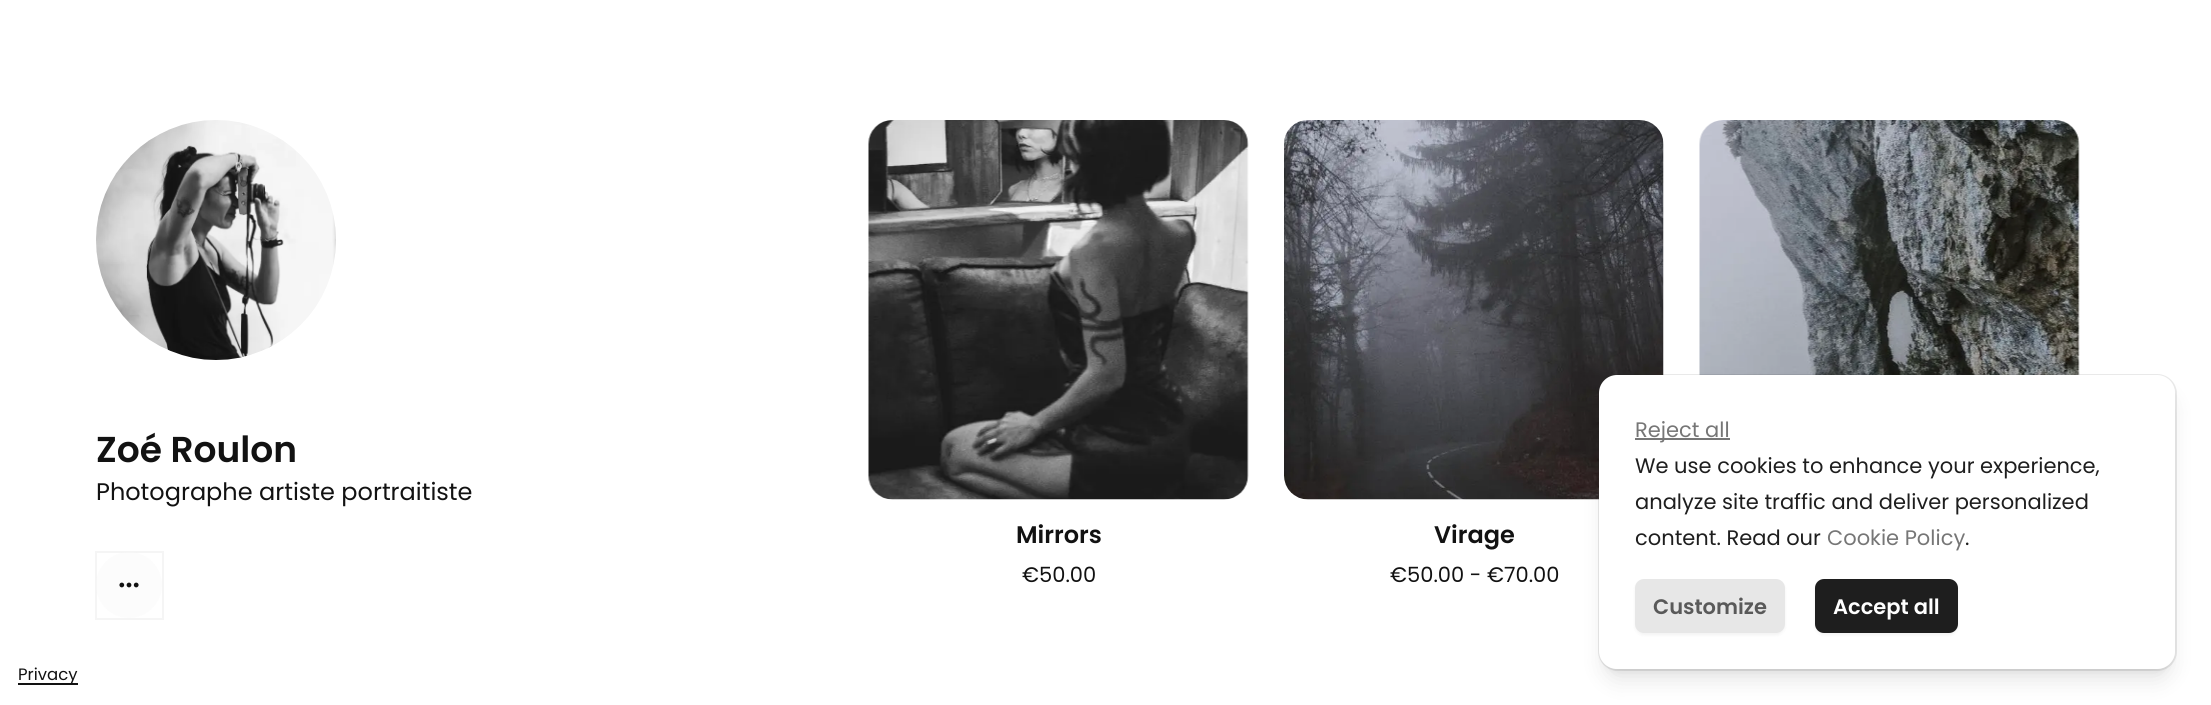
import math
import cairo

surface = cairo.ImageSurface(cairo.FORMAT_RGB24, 2211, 705)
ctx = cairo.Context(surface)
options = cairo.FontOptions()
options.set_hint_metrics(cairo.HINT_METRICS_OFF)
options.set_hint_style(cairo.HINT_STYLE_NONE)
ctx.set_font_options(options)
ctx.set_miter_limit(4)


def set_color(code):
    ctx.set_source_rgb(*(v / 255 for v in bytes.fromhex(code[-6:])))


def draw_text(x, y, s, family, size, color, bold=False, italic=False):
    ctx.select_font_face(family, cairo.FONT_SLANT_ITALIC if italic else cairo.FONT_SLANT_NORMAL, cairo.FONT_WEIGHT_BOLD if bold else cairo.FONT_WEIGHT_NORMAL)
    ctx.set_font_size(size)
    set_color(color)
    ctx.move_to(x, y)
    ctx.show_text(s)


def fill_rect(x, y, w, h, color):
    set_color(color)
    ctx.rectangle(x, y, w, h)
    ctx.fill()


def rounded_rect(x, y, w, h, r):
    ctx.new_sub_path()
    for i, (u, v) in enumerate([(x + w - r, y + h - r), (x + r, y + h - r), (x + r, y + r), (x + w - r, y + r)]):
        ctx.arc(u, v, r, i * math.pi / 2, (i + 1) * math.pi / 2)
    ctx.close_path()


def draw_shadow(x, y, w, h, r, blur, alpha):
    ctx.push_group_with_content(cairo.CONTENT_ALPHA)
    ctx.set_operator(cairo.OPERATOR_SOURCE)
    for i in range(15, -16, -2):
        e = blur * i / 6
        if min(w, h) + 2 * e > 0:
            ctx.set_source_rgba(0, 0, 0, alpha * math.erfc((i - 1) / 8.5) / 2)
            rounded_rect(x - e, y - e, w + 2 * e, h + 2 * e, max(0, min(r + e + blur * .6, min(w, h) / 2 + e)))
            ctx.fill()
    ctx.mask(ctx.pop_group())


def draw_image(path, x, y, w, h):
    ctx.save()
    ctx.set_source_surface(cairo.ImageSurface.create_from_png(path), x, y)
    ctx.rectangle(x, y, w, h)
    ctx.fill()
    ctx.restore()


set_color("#ffffff")
ctx.paint()
draw_image("assets/img1.png", 96, 120, 240, 240)
draw_text(96, 462, "Zoé Roulon", "Poppins SemiBold", 36, "#121212")
draw_text(96, 500, "Photographe artiste portraitiste", "Poppins", 24, "#121212")
ctx.rectangle(96, 552, 67, 67)
ctx.set_source_rgba(0, 0, 0, 0.04)
ctx.stroke()
ctx.set_source_rgba(0.969, 0.969, 0.969, 0.4)
ctx.arc(129, 585, 33, 0, 2 * math.pi)
ctx.fill()
draw_image("assets/img2.png", 119, 582, 20, 6)
draw_image("assets/img3.png", 1699, 120, 381, 255)
draw_image("assets/img4.png", 868, 120, 381, 380)
draw_text(1016, 543, "Mirrors", "Poppins SemiBold", 24, "#121212")
draw_text(1022, 582, "€50.00", "Poppins", 21, "#121212")
draw_image("assets/img5.png", 1284, 120, 380, 380)
draw_text(1434, 543, "Virage", "Poppins SemiBold", 24, "#121212")
draw_text(1390, 582, "€50.00 - €70.00", "Poppins", 21, "#121212")
fill_rect(18, 683, 60, 2, "#121212")
draw_text(18, 680, "Privacy", "Poppins", 16.5, "#121212")
set_color("#000000")
draw_shadow(1605, 387, 564, 282, 12, 4.5, 0.1)
draw_shadow(1604, 395, 567, 285, 14, 11, 0.1)
rounded_rect(1599, 375, 577, 295, 19)
ctx.set_source_rgba(0.118, 0.118, 0.118, 0.1)
ctx.stroke()
set_color("#ffffff")
rounded_rect(1599, 375, 576, 294, 18)
ctx.fill()
fill_rect(1635, 438, 95, 2, "#767676")
draw_text(1635, 437, "Reject all", "Poppins", 21, "#767676")
draw_text(1635, 473, "We use cookies to enhance your experience,", "Poppins", 21, "#1e1e1e")
draw_text(1635, 509, "analyze site traffic and deliver personalized", "Poppins", 21, "#1e1e1e")
draw_text(1635, 545, "content. Read our", "Poppins", 21, "#1e1e1e")
draw_text(1827, 545, "Cookie Policy", "Poppins", 21, "#767676")
draw_text(1965, 545, ".", "Poppins", 21, "#1e1e1e")
set_color("#000000")
draw_shadow(1635, 581, 150, 54, 9, 1.5, 0.05)
set_color("#e7e7e7")
rounded_rect(1635, 579, 150, 54, 9)
ctx.fill()
draw_text(1653, 614, "Customize", "Poppins SemiBold", 21, "#595959")
set_color("#000000")
draw_shadow(1815, 581, 143, 54, 9, 1.5, 0.05)
set_color("#1e1e1e")
rounded_rect(1815, 579, 143, 54, 9)
ctx.fill()
draw_text(1833, 614, "Accept all", "Poppins SemiBold", 21, "#ffffff")
surface.write_to_png("output.png")
